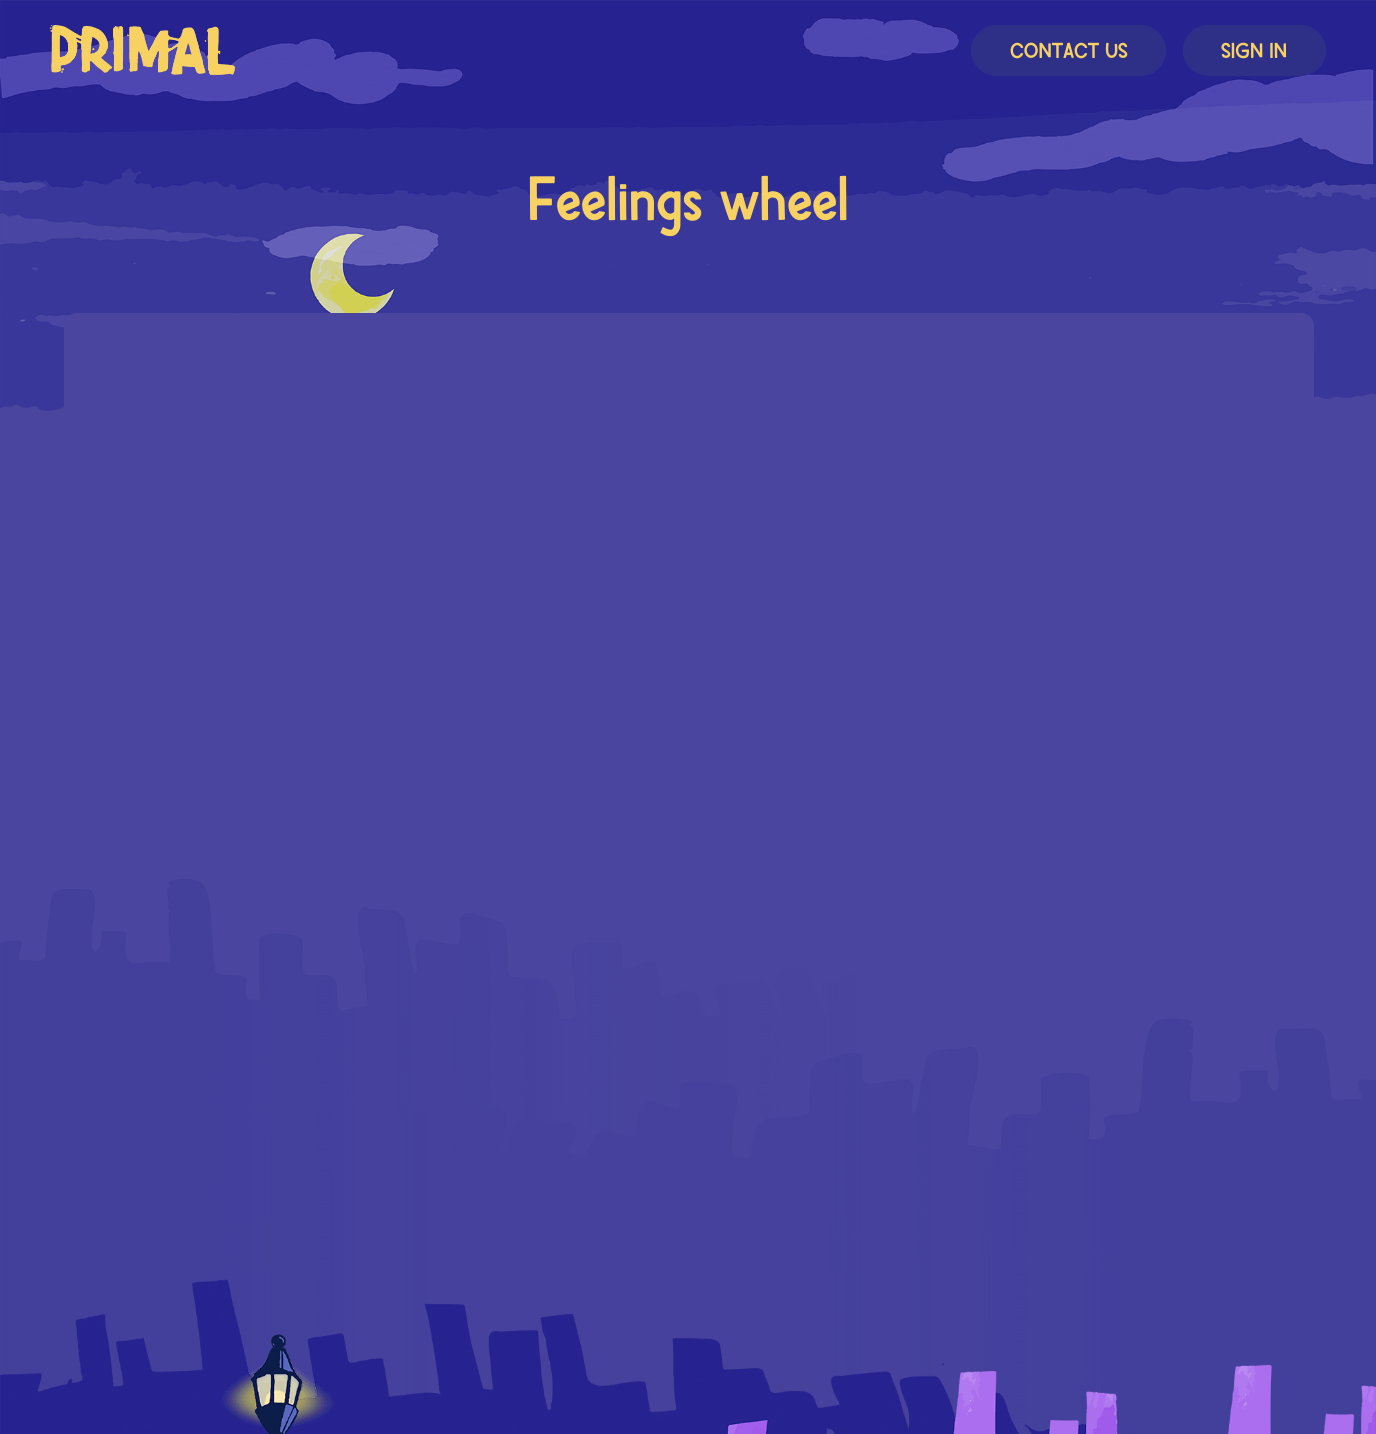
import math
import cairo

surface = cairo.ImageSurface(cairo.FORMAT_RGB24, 1376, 1434)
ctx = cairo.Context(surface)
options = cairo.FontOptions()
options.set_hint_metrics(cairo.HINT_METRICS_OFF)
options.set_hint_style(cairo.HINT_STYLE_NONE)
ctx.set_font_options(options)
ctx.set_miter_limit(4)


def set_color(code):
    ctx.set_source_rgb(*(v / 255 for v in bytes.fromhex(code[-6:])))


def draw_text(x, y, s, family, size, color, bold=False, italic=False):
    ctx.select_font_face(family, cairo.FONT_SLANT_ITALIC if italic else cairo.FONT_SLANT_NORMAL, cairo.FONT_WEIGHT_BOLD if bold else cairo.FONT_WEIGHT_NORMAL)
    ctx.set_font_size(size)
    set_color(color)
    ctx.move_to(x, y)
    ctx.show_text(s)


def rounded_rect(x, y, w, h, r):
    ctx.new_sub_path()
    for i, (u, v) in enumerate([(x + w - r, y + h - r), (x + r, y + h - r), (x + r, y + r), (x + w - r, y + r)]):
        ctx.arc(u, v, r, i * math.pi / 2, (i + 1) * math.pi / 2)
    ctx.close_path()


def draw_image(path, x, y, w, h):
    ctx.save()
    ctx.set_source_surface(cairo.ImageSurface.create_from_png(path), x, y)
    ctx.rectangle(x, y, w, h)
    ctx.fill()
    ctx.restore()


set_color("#4a469f")
ctx.paint()
draw_image("assets/img1.png", 0, 0, 1376, 411)
draw_image("assets/img2.png", 50, 25, 185, 50)
set_color("#2e3088")
rounded_rect(971.5, 25.5, 194, 50, 25)
ctx.fill_preserve()
ctx.set_line_width(1)
ctx.stroke()
draw_text(1010, 58, "CONTACT US", "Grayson", 20, "#f7d263")
set_color("#2e3088")
rounded_rect(1183.5, 25.5, 142, 50, 25)
ctx.fill_preserve()
ctx.stroke()
draw_text(1221, 58, "SIGN IN", "Grayson", 20, "#f7d263")
draw_text(527, 220, "Feelings wheel", "Grayson", 57.5, "#f7d263")
set_color("#4a469f")
rounded_rect(64, 313, 1250, 287, 13)
ctx.fill()
draw_image("assets/img4.png", 0, 879, 1376, 555)
draw_image("assets/img3.png", 0, 1279, 1376, 155)
surface.write_to_png("output.png")
